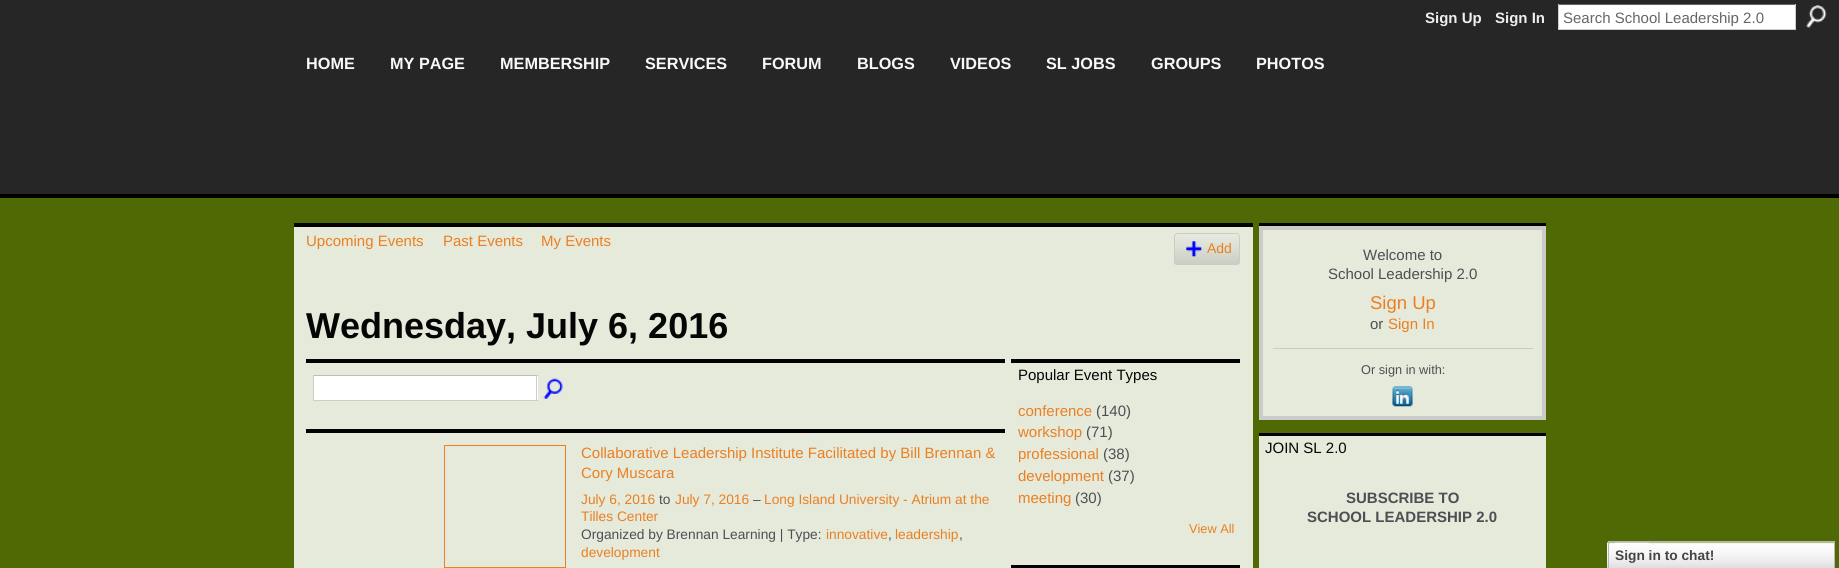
import math
import cairo

surface = cairo.ImageSurface(cairo.FORMAT_RGB24, 1839, 568)
ctx = cairo.Context(surface)
options = cairo.FontOptions()
options.set_hint_metrics(cairo.HINT_METRICS_OFF)
options.set_hint_style(cairo.HINT_STYLE_NONE)
ctx.set_font_options(options)
ctx.set_miter_limit(4)


def set_color(code):
    ctx.set_source_rgb(*(v / 255 for v in bytes.fromhex(code[-6:])))


def draw_text(x, y, s, family, size, color, bold=False, italic=False):
    ctx.select_font_face(family, cairo.FONT_SLANT_ITALIC if italic else cairo.FONT_SLANT_NORMAL, cairo.FONT_WEIGHT_BOLD if bold else cairo.FONT_WEIGHT_NORMAL)
    ctx.set_font_size(size)
    set_color(color)
    ctx.move_to(x, y)
    ctx.show_text(s)


def fill_rect(x, y, w, h, color):
    set_color(color)
    ctx.rectangle(x, y, w, h)
    ctx.fill()


def rounded_rect(x, y, w, h, r):
    ctx.new_sub_path()
    for i, (u, v) in enumerate([(x + w - r, y + h - r), (x + r, y + h - r), (x + r, y + r), (x + w - r, y + r)]):
        ctx.arc(u, v, r, i * math.pi / 2, (i + 1) * math.pi / 2)
    ctx.close_path()


def draw_image(path, x, y, w, h):
    ctx.save()
    ctx.set_source_surface(cairo.ImageSurface.create_from_png(path), x, y)
    ctx.rectangle(x, y, w, h)
    ctx.fill()
    ctx.restore()


set_color("#262626")
ctx.paint()
draw_text(1425, 23, "Sign Up", "Liberation Sans", 15, "#eeeeee", bold=True)
draw_text(1495, 23, "Sign In", "Liberation Sans", 15, "#eeeeee", bold=True)
fill_rect(1559, 5, 236, 24, "#ffffff")
fill_rect(1558, 4, 238, 1, "#666666")
fill_rect(1795, 4, 1, 26, "#cccccc")
fill_rect(1558, 29, 238, 1, "#cccccc")
fill_rect(1558, 4, 1, 26, "#cccccc")
draw_text(1563, 23, "Search School Leadership 2.0", "Liberation Sans", 15, "#666666")
draw_image("assets/img1.png", 1806, 5, 21, 23)
fill_rect(0, 194, 1839, 4, "#000000")
draw_text(306, 69, "HOME", "Liberation Sans", 16.25, "#f5faf9", bold=True)
draw_text(390, 69, "MY PAGE", "Liberation Sans", 16.25, "#f5faf9", bold=True)
draw_text(500, 69, "MEMBERSHIP", "Liberation Sans", 16.25, "#f5faf9", bold=True)
draw_text(645, 69, "SERVICES", "Liberation Sans", 16.25, "#f5faf9", bold=True)
draw_text(762, 69, "FORUM", "Liberation Sans", 16.25, "#f5faf9", bold=True)
draw_text(857, 69, "BLOGS", "Liberation Sans", 16.25, "#f5faf9", bold=True)
draw_text(950, 69, "VIDEOS", "Liberation Sans", 16.25, "#f5faf9", bold=True)
draw_text(1046, 69, "SL JOBS", "Liberation Sans", 16.25, "#f5faf9", bold=True)
draw_text(1151, 69, "GROUPS", "Liberation Sans", 16.25, "#f5faf9", bold=True)
draw_text(1256, 69, "PHOTOS", "Liberation Sans", 16.25, "#f5faf9", bold=True)
fill_rect(0, 198, 1839, 370, "#4f6a05")
fill_rect(294, 227, 959, 341, "#e5eadb")
fill_rect(294, 223, 959, 4, "#030100")
draw_text(306, 246, "Upcoming Events", "Liberation Sans", 15, "#eb7f21")
draw_text(443, 246, "Past Events", "Liberation Sans", 15, "#eb7f21")
draw_text(541, 246, "My Events", "Liberation Sans", 15, "#eb7f21")
draw_image("assets/img2.png", 1174, 234, 66, 31)
rounded_rect(1174.5, 233.5, 65, 31, 3.5)
set_color("#cbcbcb")
ctx.set_line_width(1)
ctx.stroke()
draw_image("assets/img3.png", 1186, 241, 16, 16)
draw_text(1207, 253, "Add", "Liberation Sans", 14, "#eb7f21")
draw_text(306, 338, "Wednesday, July 6, 2016", "Liberation Sans", 36, "#050505", bold=True)
fill_rect(306, 359, 699, 4, "#030100")
fill_rect(314, 376, 224, 24, "#ffffff")
fill_rect(313, 375, 225, 1, "#bbbbbb")
fill_rect(536, 375, 1, 26, "#cccccc")
fill_rect(313, 400, 225, 1, "#cccccc")
fill_rect(313, 375, 1, 26, "#cccccc")
draw_image("assets/img4.png", 543, 378, 20, 21)
fill_rect(306, 429, 699, 4, "#030100")
ctx.rectangle(444.5, 445.5, 121, 122)
set_color("#eb7f21")
ctx.stroke()
draw_text(581, 458, "Collaborative Leadership Institute Facilitated by Bill Brennan &", "Liberation Sans", 15, "#eb7f21")
draw_text(581, 478, "Cory Muscara", "Liberation Sans", 15, "#eb7f21")
draw_text(581, 504, "July 6, 2016", "Liberation Sans", 13.75, "#eb7f21")
draw_text(659, 504, "to", "Liberation Sans", 13.75, "#4e4e54")
draw_text(675, 504, "July 7, 2016", "Liberation Sans", 13.75, "#eb7f21")
draw_text(753, 504, "–", "Liberation Sans", 13.75, "#4e4e54")
draw_text(764, 504, "Long Island University - Atrium at the", "Liberation Sans", 13.75, "#eb7f21")
draw_text(581, 521, "Tilles Center", "Liberation Sans", 13.75, "#eb7f21")
draw_text(581, 539, "Organized by Brennan Learning | Type:", "Liberation Sans", 13.75, "#4e4e54")
draw_text(826, 539, "innovative", "Liberation Sans", 13.75, "#eb7f21")
draw_text(888, 539, ",", "Liberation Sans", 13.75, "#4e4e54")
draw_text(895, 539, "leadership", "Liberation Sans", 13.75, "#eb7f21")
draw_text(959, 539, ",", "Liberation Sans", 13.75, "#4e4e54")
draw_text(581, 557, "development", "Liberation Sans", 13.75, "#eb7f21")
fill_rect(1011, 359, 229, 4, "#030100")
draw_text(1018, 380, "Popular Event Types", "Liberation Sans", 15, "#050505")
draw_text(1018, 416, "conference", "Liberation Sans", 15, "#eb7f21")
draw_text(1096, 416, "(140)", "Liberation Sans", 15, "#4e4e54")
draw_text(1018, 437, "workshop", "Liberation Sans", 15, "#eb7f21")
draw_text(1086, 437, "(71)", "Liberation Sans", 15, "#4e4e54")
draw_text(1018, 459, "professional", "Liberation Sans", 15, "#eb7f21")
draw_text(1103, 459, "(38)", "Liberation Sans", 15, "#4e4e54")
draw_text(1018, 481, "development", "Liberation Sans", 15, "#eb7f21")
draw_text(1108, 481, "(37)", "Liberation Sans", 15, "#4e4e54")
draw_text(1018, 503, "meeting", "Liberation Sans", 15, "#eb7f21")
draw_text(1075, 503, "(30)", "Liberation Sans", 15, "#4e4e54")
draw_text(1189, 533, "View All", "Liberation Sans", 12.75, "#eb7f21")
fill_rect(1011, 565, 229, 3, "#030100")
fill_rect(1259, 223, 287, 3, "#030100")
set_color("#e5eadb")
ctx.rectangle(1261, 228, 283, 190)
ctx.fill_preserve()
set_color("#cbcbcb")
ctx.set_line_width(4)
ctx.stroke()
draw_text(1363, 260, "Welcome to", "Liberation Sans", 15, "#4e4e54")
draw_text(1328, 279, "School Leadership 2.0", "Liberation Sans", 15, "#4e4e54")
draw_text(1370, 309, "Sign Up", "Liberation Sans", 18.5, "#eb7f21")
draw_text(1370, 329, "or", "Liberation Sans", 15, "#4e4e54")
draw_text(1388, 329, "Sign In", "Liberation Sans", 15, "#eb7f21")
fill_rect(1273, 348, 260, 1, "#cbcbcb")
draw_text(1361, 374, "Or sign in with:", "Liberation Sans", 12.75, "#4e4e54")
draw_image("assets/img5.png", 1392, 386, 21, 21)
fill_rect(1259, 436, 287, 132, "#e5eadb")
fill_rect(1259, 433, 287, 3, "#030100")
draw_text(1265, 453, "JOIN SL 2.0", "Liberation Sans", 15, "#050505")
draw_text(1346, 503, "SUBSCRIBE TO", "Liberation Sans", 15, "#4e4e54", bold=True)
draw_text(1307, 522, "SCHOOL LEADERSHIP 2.0", "Liberation Sans", 15, "#4e4e54", bold=True)
draw_image("assets/img6.png", 1607, 542, 227, 26)
ctx.rectangle(1608.5, 541.5, 226, 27)
set_color("#b7b7b7")
ctx.set_line_width(1)
ctx.stroke()
draw_image("assets/img7.png", 1615, 542, 34, 2)
draw_text(1615, 560, "Sign in to chat!", "Liberation Sans", 13.75, "#454545", bold=True)
surface.write_to_png("output.png")
